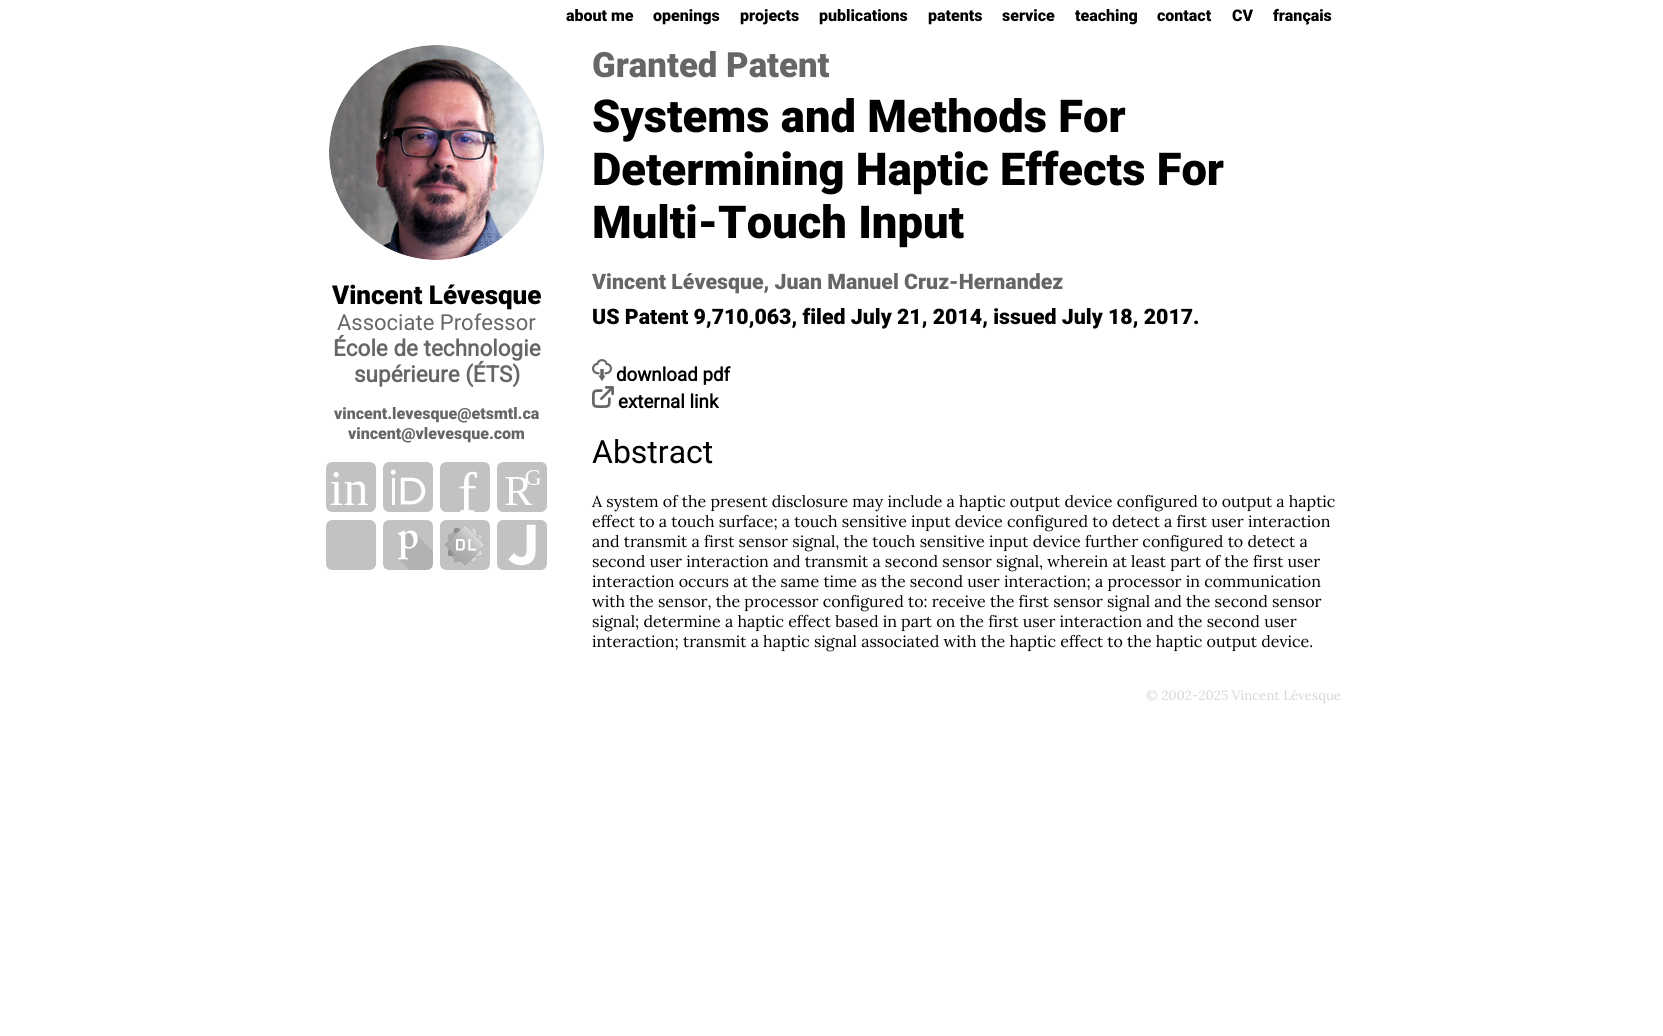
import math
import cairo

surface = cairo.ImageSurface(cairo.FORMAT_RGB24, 1663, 1036)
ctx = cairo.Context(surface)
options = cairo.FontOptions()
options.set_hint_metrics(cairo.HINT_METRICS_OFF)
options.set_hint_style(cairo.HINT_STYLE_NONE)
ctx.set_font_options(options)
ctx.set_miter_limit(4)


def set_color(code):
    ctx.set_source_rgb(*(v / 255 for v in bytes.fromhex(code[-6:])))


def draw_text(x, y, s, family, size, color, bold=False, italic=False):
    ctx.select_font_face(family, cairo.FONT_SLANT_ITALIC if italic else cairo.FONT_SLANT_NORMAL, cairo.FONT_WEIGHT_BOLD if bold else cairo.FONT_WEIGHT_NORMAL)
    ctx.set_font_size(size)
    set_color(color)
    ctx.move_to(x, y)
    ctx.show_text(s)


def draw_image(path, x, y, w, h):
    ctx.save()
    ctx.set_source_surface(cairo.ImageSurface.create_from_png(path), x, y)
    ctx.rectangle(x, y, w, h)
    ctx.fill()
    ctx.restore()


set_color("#ffffff")
ctx.paint()
draw_text(566, 21, "about me", "Roboto Black", 16, "#000000")
draw_text(653, 21, "openings", "Roboto Black", 16, "#000000")
draw_text(740, 21, "projects", "Roboto Black", 16, "#000000")
draw_text(819, 21, "publications", "Roboto Black", 16, "#000000")
draw_text(928, 21, "patents", "Roboto Black", 16, "#000000")
draw_text(1002, 21, "service", "Roboto Black", 16, "#000000")
draw_text(1075, 21, "teaching", "Roboto Black", 16, "#000000")
draw_text(1157, 21, "contact", "Roboto Black", 16, "#000000")
draw_text(1232, 21, "CV", "Roboto Black", 16, "#000000")
draw_text(1273, 21, "français", "Roboto Black", 16, "#000000")
draw_image("assets/img1.png", 329, 45, 215, 215)
draw_text(332, 304, "Vincent Lévesque", "Roboto Black", 26, "#000000")
draw_text(337, 330, "Associate Professor", "Roboto", 22, "#666666")
draw_text(333, 356, "École de technologie", "Roboto", 22.5, "#666666", bold=True)
draw_text(354, 382, "supérieure (ÉTS)", "Roboto", 22.5, "#666666", bold=True)
draw_text(334, 419, "vincent.levesque@etsmtl.ca", "Roboto Black", 16, "#666666")
draw_text(348, 439, "vincent@vlevesque.com", "Roboto Black", 16, "#666666")
draw_image("assets/img2.png", 326, 462, 50, 50)
draw_image("assets/img3.png", 383, 462, 50, 50)
draw_image("assets/img4.png", 440, 462, 50, 50)
draw_image("assets/img5.png", 497, 462, 50, 50)
set_color("#c2c2c2")
ctx.new_path()
ctx.move_to(370, 570)
ctx.line_to(332, 570)
ctx.curve_to(329, 570, 326, 567, 326, 564)
ctx.line_to(326, 526)
ctx.curve_to(326, 523, 329, 520, 332, 520)
ctx.line_to(370, 520)
ctx.curve_to(373, 520, 376, 523, 376, 526)
ctx.line_to(376, 564)
ctx.curve_to(376, 567, 373, 570, 370, 570)
ctx.close_path()
ctx.fill()
draw_image("assets/img6.png", 383, 520, 50, 50)
draw_image("assets/img7.png", 440, 520, 50, 50)
draw_image("assets/img8.png", 497, 520, 50, 50)
draw_text(592, 77, "Granted Patent", "Roboto Black", 34.75, "#666666")
draw_text(592, 132, "Systems and Methods For", "Roboto Black", 45.3, "#000000")
draw_text(592, 185, "Determining Haptic Effects For", "Roboto Black", 45.3, "#000000")
draw_text(592, 238, "Multi-Touch Input", "Roboto Black", 45.3, "#000000")
draw_text(592, 289, "Vincent Lévesque, Juan Manuel Cruz-Hernandez", "Roboto Black", 21.3, "#666666")
draw_text(592, 324, "US Patent 9,710,063, filed July 21, 2014, issued July 18, 2017.", "Roboto Black", 21.3, "#000000")
draw_image("assets/img9.png", 592, 359, 20, 22)
draw_text(616, 381, "download pdf", "Roboto", 18.75, "#000000", bold=True)
draw_image("assets/img10.png", 592, 386, 22, 22)
draw_text(618, 408, "external link", "Roboto", 18.75, "#000000", bold=True)
draw_text(592, 463, "Abstract", "Roboto", 32, "#000000")
draw_text(592, 507, "A system of the present disclosure may include a haptic output device configured to output a haptic", "Lora", 16, "#000000")
draw_text(592, 527, "effect to a touch surface; a touch sensitive input device configured to detect a first user interaction", "Lora", 16, "#000000")
draw_text(592, 547, "and transmit a first sensor signal, the touch sensitive input device further configured to detect a", "Lora", 16, "#000000")
draw_text(592, 567, "second user interaction and transmit a second sensor signal, wherein at least part of the first user", "Lora", 16, "#000000")
draw_text(592, 587, "interaction occurs at the same time as the second user interaction; a processor in communication", "Lora", 16, "#000000")
draw_text(592, 607, "with the sensor, the processor configured to: receive the first sensor signal and the second sensor", "Lora", 16, "#000000")
draw_text(592, 627, "signal; determine a haptic effect based in part on the first user interaction and the second user", "Lora", 16, "#000000")
draw_text(592, 647, "interaction; transmit a haptic signal associated with the haptic effect to the haptic output device.", "Lora", 16, "#000000")
draw_text(1146, 700, "© 2002-2025 Vincent Lévesque", "Lora", 13.3, "#d6d6d6")
surface.write_to_png("output.png")
